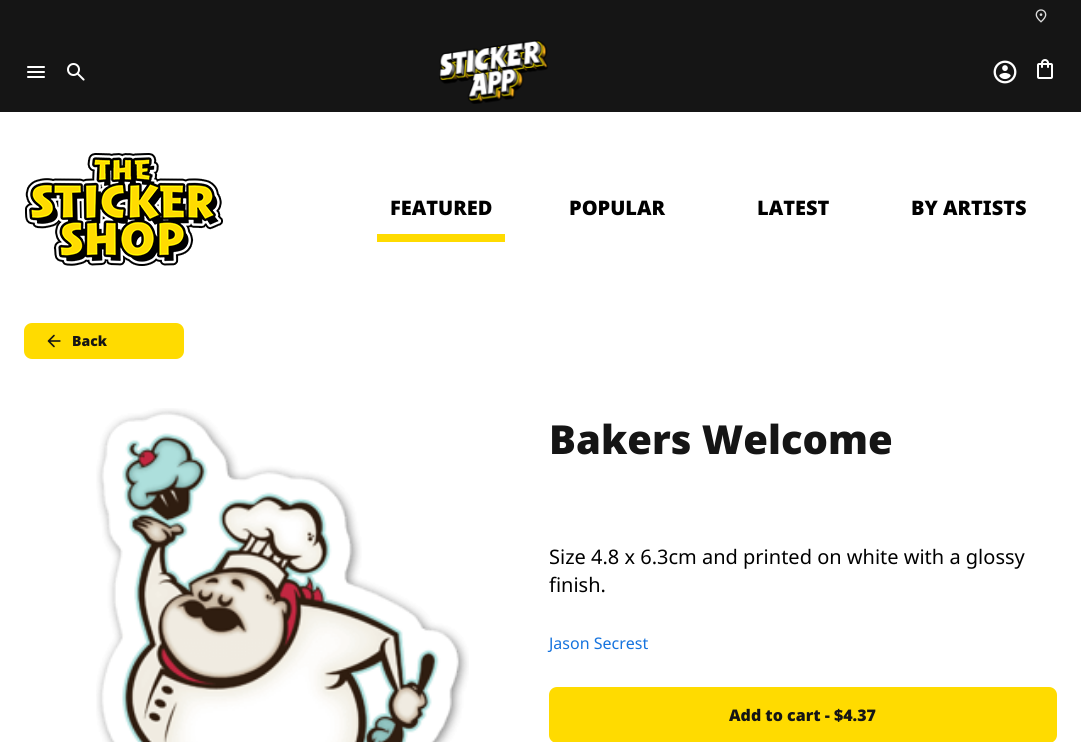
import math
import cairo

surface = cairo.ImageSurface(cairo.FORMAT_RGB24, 1081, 742)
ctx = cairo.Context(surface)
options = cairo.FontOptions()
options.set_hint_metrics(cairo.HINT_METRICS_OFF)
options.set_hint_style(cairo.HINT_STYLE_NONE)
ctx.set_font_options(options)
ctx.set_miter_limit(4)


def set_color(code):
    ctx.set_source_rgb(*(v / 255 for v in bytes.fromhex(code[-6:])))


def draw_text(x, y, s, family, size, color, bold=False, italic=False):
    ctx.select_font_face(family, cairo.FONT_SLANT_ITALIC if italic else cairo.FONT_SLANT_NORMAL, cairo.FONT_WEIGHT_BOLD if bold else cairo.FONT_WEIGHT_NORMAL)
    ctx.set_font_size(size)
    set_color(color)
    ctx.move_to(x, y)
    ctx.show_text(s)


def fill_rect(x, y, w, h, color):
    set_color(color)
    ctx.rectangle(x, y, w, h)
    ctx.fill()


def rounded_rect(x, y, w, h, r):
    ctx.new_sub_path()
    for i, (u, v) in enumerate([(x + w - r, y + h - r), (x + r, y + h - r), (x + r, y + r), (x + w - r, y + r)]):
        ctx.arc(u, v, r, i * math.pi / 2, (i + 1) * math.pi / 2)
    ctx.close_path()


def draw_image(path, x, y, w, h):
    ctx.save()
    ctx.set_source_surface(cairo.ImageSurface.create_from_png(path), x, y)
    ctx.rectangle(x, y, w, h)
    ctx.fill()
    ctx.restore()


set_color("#ffffff")
ctx.paint()
fill_rect(0, 0, 1081, 112, "#151515")
draw_image("assets/img1.png", 1035, 9, 12, 14)
draw_image("assets/img2.png", 27, 66, 18, 12)
draw_image("assets/img3.png", 67, 63, 18, 18)
draw_image("assets/img4.png", 439, 40, 109, 64)
draw_image("assets/img5.png", 993, 60, 24, 24)
draw_image("assets/img6.png", 1037, 59, 16, 20)
draw_image("assets/img7.png", 25, 153, 198, 113)
draw_text(390, 215, "FEATURED", "Noto Sans Black", 20, "#000000")
fill_rect(377, 234, 128, 8, "#ffdb00")
draw_text(569, 215, "POPULAR", "Noto Sans Black", 20, "#000000")
draw_text(757, 215, "LATEST", "Noto Sans Black", 20, "#000000")
draw_text(911, 215, "BY ARTISTS", "Noto Sans Black", 20, "#000000")
set_color("#ffdb00")
rounded_rect(24, 323, 160, 36, 8)
ctx.fill()
draw_image("assets/img8.png", 47, 334, 14, 14)
draw_text(72, 346, "Back", "Noto Sans Black", 14, "#151515")
draw_image("assets/img9.png", 96, 408, 373, 334)
draw_text(549, 454, "Bakers Welcome", "Noto Sans Black", 40, "#151515")
draw_text(549, 564, "Size 4.8 x 6.3cm and printed on white with a glossy", "Noto Sans", 20, "#000000")
draw_text(549, 592, "finish.", "Noto Sans", 20, "#000000")
draw_text(549, 649, "Jason Secrest", "Noto Sans", 16, "#1573de")
set_color("#ffdb00")
rounded_rect(549, 687, 508, 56, 8)
ctx.fill()
draw_text(729, 721, "Add to cart - $4.37", "Noto Sans Black", 16, "#151515")
surface.write_to_png("output.png")
